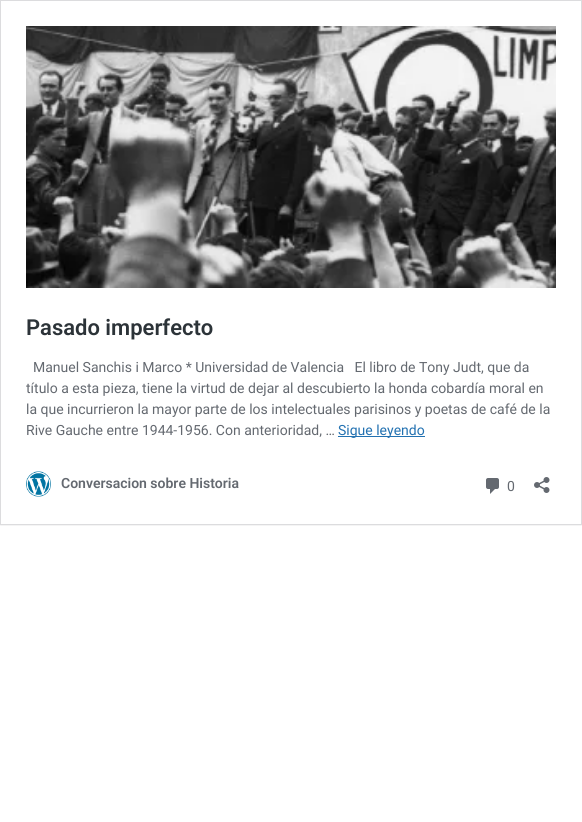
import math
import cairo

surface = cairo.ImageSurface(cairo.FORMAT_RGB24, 582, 822)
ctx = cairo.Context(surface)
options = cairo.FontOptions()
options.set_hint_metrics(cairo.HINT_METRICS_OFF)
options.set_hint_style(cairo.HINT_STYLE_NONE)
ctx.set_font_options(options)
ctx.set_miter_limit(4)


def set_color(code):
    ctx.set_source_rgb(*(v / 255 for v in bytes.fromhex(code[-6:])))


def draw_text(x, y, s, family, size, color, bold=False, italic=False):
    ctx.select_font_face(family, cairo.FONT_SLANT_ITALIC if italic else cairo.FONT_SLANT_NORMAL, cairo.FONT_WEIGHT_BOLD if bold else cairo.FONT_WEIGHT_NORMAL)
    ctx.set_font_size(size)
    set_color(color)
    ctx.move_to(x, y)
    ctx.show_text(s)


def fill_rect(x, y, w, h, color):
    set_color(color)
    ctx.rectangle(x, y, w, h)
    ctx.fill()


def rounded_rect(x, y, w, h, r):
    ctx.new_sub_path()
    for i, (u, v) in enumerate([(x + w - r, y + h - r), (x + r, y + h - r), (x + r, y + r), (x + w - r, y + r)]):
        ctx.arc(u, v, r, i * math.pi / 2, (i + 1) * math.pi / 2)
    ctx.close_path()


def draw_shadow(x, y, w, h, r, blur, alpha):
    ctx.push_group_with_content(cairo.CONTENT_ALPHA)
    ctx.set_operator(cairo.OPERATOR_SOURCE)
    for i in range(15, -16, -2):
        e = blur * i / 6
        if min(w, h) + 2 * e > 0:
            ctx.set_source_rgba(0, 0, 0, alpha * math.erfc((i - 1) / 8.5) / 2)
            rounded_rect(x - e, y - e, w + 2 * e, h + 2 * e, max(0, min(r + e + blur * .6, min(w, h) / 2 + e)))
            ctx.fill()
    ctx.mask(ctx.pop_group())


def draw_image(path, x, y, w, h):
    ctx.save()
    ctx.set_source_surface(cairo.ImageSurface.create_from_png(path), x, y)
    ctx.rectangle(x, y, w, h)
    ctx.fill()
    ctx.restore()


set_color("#ffffff")
ctx.paint()
ctx.save()
ctx.rectangle(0, 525, 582, 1)
ctx.clip()
set_color("#000000")
draw_shadow(0, 1, 582, 525, 0, 0.5, 0.05)
ctx.restore()
ctx.rectangle(0.5, 0.5, 581, 524)
set_color("#dcdcde")
ctx.set_line_width(1)
ctx.stroke()
draw_image("assets/img1.png", 26, 26, 530, 262)
draw_text(26, 335, "Pasado imperfecto", "Roboto SemiBold", 22, "#2c3338")
draw_text(33, 372, "Manuel Sanchis i Marco * Universidad de Valencia   El libro de Tony Judt, que da", "Roboto", 14, "#646970")
draw_text(26, 393, "título a esta pieza, tiene la virtud de dejar al descubierto la honda cobardía moral en", "Roboto", 14, "#646970")
draw_text(26, 414, "la que incurrieron la mayor parte de los intelectuales parisinos y poetas de café de la", "Roboto", 14, "#646970")
draw_text(26, 435, "Rive Gauche entre 1944-1956. Con anterioridad, …", "Roboto", 14, "#646970")
fill_rect(338, 436, 87, 1, "#2271b1")
draw_text(338, 435, "Sigue leyendo", "Roboto", 14, "#2271b1")
draw_image("assets/img2.png", 26, 471, 25, 26)
draw_text(61, 488, "Conversacion sobre Historia", "Roboto SemiBold", 14, "#646970")
draw_image("assets/img3.png", 486, 478, 13, 16)
draw_text(507, 491, "0", "Roboto", 14, "#646970")
draw_image("assets/img4.png", 534, 477, 16, 16)
surface.write_to_png("output.png")
